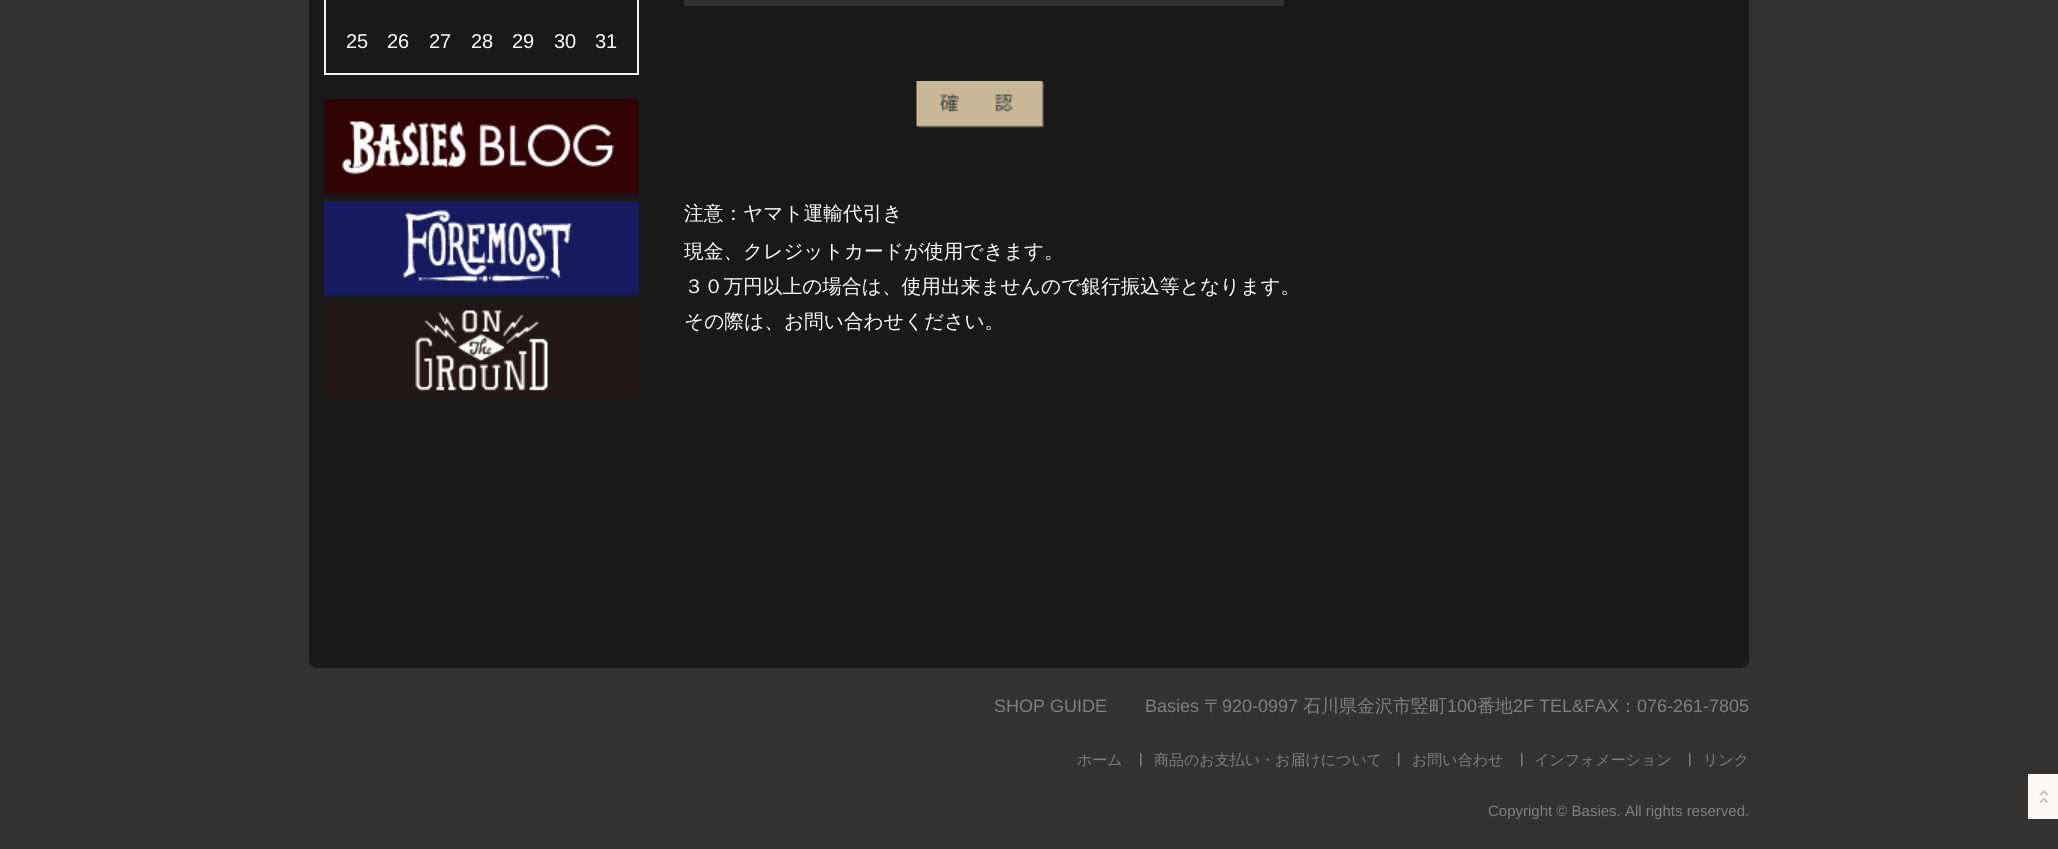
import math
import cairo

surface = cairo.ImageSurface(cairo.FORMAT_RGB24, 2058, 849)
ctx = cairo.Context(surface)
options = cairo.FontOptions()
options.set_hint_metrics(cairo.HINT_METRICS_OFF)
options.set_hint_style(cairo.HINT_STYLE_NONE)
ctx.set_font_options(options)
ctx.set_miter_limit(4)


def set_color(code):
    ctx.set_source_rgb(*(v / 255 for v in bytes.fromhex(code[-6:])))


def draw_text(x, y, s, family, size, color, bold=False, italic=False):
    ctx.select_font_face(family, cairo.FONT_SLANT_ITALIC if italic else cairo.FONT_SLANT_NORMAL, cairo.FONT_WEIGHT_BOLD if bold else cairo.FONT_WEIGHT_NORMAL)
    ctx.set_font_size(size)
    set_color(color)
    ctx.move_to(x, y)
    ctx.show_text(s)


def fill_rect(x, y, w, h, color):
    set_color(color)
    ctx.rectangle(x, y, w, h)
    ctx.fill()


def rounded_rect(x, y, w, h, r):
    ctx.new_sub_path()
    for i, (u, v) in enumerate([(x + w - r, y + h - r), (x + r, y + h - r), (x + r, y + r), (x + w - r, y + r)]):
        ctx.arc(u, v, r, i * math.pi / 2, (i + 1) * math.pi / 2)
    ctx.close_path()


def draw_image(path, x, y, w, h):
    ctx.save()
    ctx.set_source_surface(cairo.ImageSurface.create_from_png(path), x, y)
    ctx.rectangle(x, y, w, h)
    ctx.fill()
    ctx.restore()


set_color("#323232")
ctx.paint()
set_color("#191919")
rounded_rect(309, -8, 1440, 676, 8)
ctx.fill()
ctx.rectangle(325, -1, 313, 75)
set_color("#f1f1f1")
ctx.stroke()
draw_text(346, 48, "25", "Liberation Sans", 20, "#ffffff")
draw_text(387, 48, "26", "Liberation Sans", 20, "#ffffff")
draw_text(429, 48, "27", "Liberation Sans", 20, "#ffffff")
draw_text(471, 48, "28", "Liberation Sans", 20, "#ffffff")
draw_text(512, 48, "29", "Liberation Sans", 20, "#ffffff")
draw_text(554, 48, "30", "Liberation Sans", 20, "#ffffff")
draw_text(595, 48, "31", "Liberation Sans", 20, "#ffffff")
draw_image("assets/img1.png", 324, 99, 315, 95)
draw_image("assets/img2.png", 324, 201, 315, 95)
draw_image("assets/img3.png", 324, 303, 315, 95)
fill_rect(684, 0, 600, 6, "#323232")
draw_image("assets/img4.png", 916, 81, 128, 47)
draw_text(684, 220, "注意：ヤマト運輸代引き", "WenQuanYi Zen Hei Medium", 19.7, "#ffffff")
draw_text(684, 258, "現金、クレジットカードが使用できます。", "WenQuanYi Zen Hei Medium", 19.7, "#ffffff")
draw_text(684, 293, "３０万円以上の場合は、使用出来ませんので銀行振込等となります。", "WenQuanYi Zen Hei Medium", 19.7, "#ffffff")
draw_text(684, 328, "その際は、お問い合わせください。", "WenQuanYi Zen Hei Medium", 19.7, "#ffffff")
draw_text(994, 712, "SHOP GUIDE", "Liberation Sans", 18, "#7f7f7f")
draw_text(1145, 712, "Basies", "Liberation Sans", 18, "#7f7f7f")
draw_text(1204, 712, "〒", "WenQuanYi Zen Hei Medium", 18, "#7f7f7f")
draw_text(1222, 712, "920-0997", "Liberation Sans", 18, "#7f7f7f")
draw_text(1303, 712, "石川県金沢市竪町", "WenQuanYi Zen Hei Medium", 18, "#7f7f7f")
draw_text(1447, 712, "100", "Liberation Sans", 18, "#7f7f7f")
draw_text(1477, 712, "番地", "WenQuanYi Zen Hei Medium", 18, "#7f7f7f")
draw_text(1513, 712, "2F TEL&FAX", "Liberation Sans", 18, "#7f7f7f")
draw_text(1619, 712, "：", "WenQuanYi Zen Hei Medium", 18, "#7f7f7f")
draw_text(1637, 712, "076-261-7805", "Liberation Sans", 18, "#7f7f7f")
draw_text(1077, 765, "ホーム", "WenQuanYi Zen Hei Medium", 15, "#7f7f7f")
draw_image("assets/img5.png", 1140, 753, 2, 14)
draw_text(1154, 765, "商品のお支払い・お届けについて", "WenQuanYi Zen Hei Medium", 15, "#7f7f7f")
draw_image("assets/img5.png", 1398, 753, 2, 14)
draw_text(1412, 765, "お問い合わせ", "WenQuanYi Zen Hei Medium", 15, "#7f7f7f")
draw_image("assets/img5.png", 1521, 753, 2, 14)
draw_text(1534, 765, "インフォメーション", "WenQuanYi Zen Hei Medium", 15, "#7f7f7f")
draw_image("assets/img5.png", 1689, 753, 2, 14)
draw_text(1703, 765, "リンク", "WenQuanYi Zen Hei Medium", 15, "#7f7f7f")
draw_text(1488, 816, "Copyright © Basies. All rights reserved.", "Liberation Sans", 15, "#7f7f7f")
draw_image("assets/img6.png", 2028, 774, 30, 45)
surface.write_to_png("output.png")
